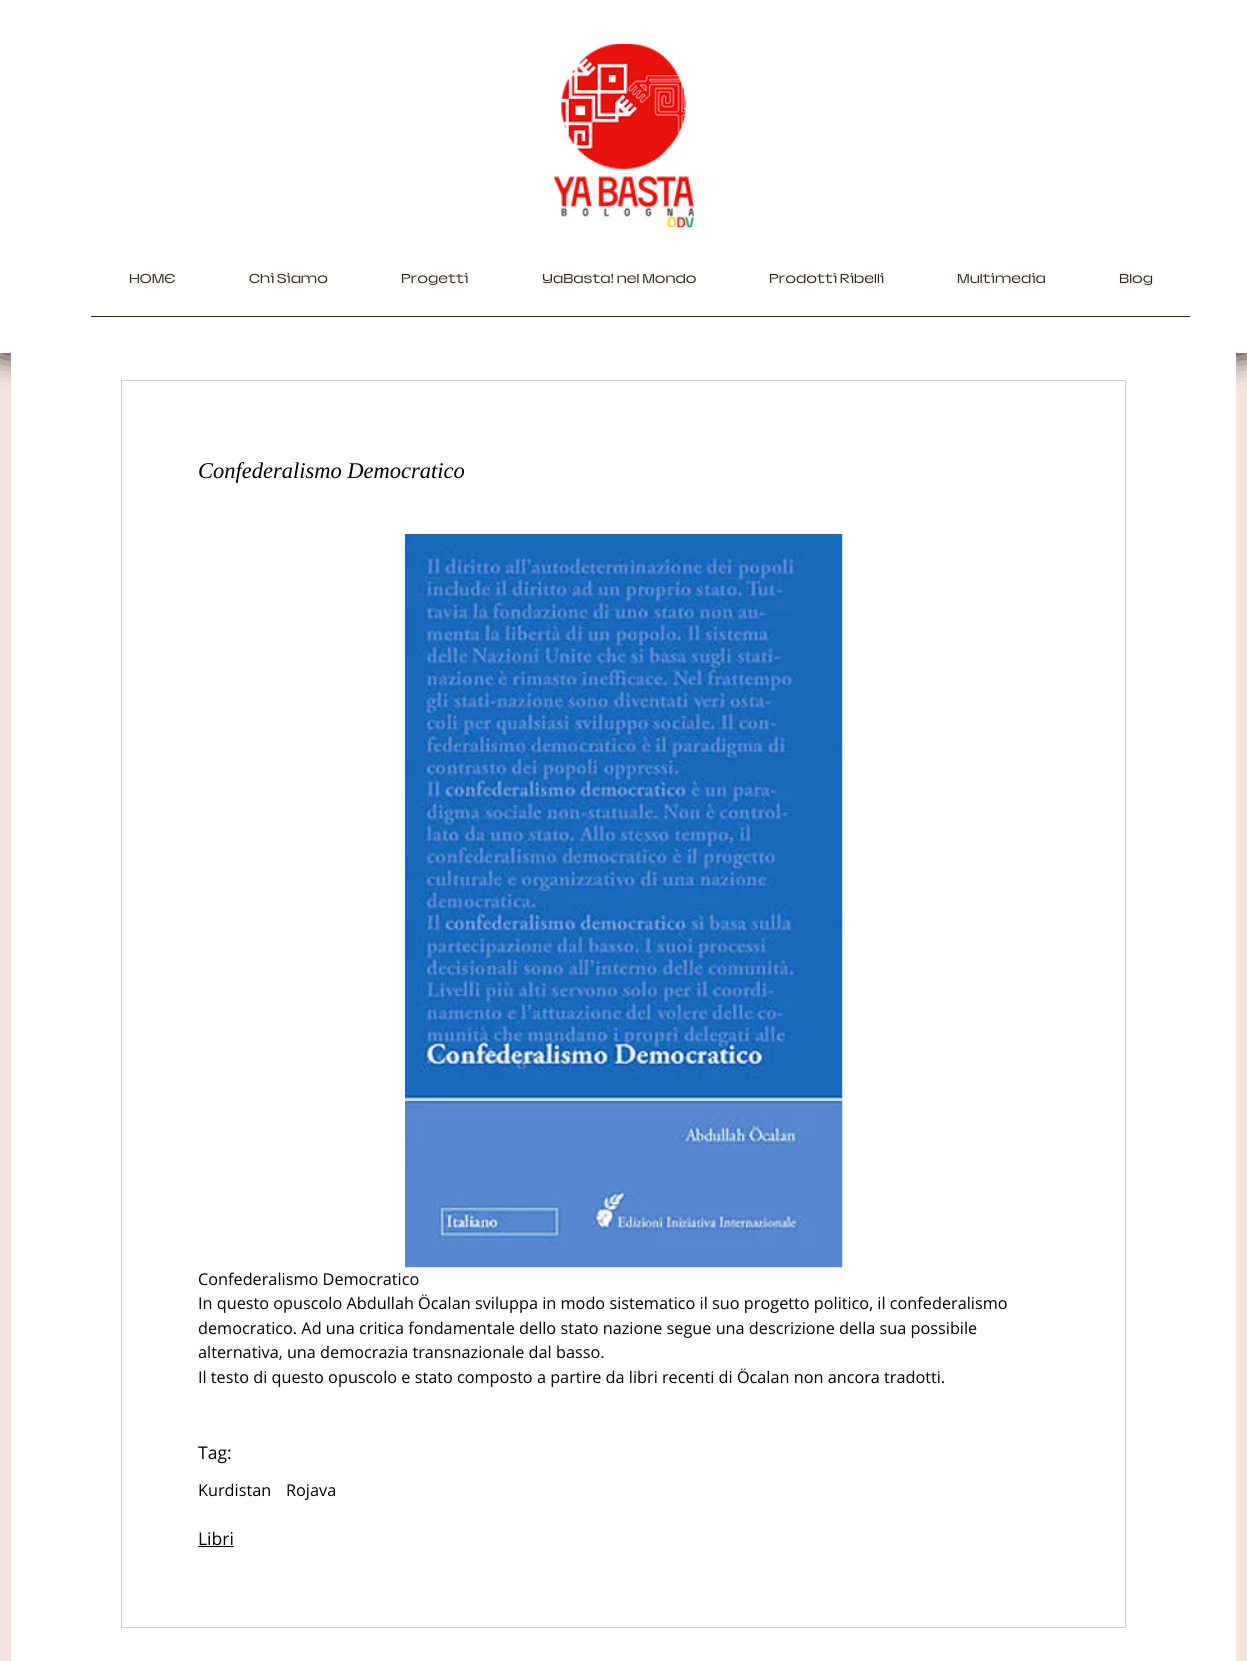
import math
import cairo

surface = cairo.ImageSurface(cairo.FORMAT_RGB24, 1247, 1661)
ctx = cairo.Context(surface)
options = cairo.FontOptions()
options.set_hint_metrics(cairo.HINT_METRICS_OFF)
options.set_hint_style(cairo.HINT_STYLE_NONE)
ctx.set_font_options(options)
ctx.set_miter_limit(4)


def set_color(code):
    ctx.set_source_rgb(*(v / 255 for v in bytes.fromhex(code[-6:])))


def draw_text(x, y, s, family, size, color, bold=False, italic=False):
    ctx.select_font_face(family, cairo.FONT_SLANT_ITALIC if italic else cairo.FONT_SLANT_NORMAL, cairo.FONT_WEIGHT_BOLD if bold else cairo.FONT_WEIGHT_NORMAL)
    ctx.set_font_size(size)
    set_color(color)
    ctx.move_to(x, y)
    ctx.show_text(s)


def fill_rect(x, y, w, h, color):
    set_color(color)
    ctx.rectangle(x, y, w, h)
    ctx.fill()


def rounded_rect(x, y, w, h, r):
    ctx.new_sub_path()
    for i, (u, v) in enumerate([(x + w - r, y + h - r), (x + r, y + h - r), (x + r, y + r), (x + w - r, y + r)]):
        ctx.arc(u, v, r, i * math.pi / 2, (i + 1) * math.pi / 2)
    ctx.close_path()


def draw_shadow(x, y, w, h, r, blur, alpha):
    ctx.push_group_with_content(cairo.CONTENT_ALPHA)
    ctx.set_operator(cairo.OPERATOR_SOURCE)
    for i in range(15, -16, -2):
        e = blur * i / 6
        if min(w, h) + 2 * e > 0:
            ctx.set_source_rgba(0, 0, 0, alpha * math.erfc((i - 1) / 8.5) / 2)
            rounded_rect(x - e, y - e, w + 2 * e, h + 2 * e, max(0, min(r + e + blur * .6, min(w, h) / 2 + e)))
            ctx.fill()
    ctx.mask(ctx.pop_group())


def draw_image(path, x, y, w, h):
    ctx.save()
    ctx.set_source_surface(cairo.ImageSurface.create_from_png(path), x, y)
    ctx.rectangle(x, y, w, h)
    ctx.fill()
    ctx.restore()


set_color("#f6e5e2")
ctx.paint()
set_color("#000000")
draw_shadow(0, 0, 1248, 353, 0, 16, 1)
fill_rect(0, 0, 1247, 353, "#ffffff")
draw_image("assets/img1.png", 553, 43, 141, 185)
draw_text(129, 283, "HOME", "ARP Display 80", 11.25, "#342216")
draw_text(249, 283, "Chi Siamo", "ARP Display 80", 11.25, "#342216")
draw_text(401, 283, "Progetti", "ARP Display 80", 11.25, "#342216")
draw_text(542, 283, "YaBasta! nel Mondo", "ARP Display 80", 11.25, "#342216")
draw_text(769, 283, "Prodotti Ribelli", "ARP Display 80", 11.25, "#342216")
draw_text(957, 283, "Multimedia", "ARP Display 80", 11.25, "#342216")
draw_text(1119, 283, "Blog", "ARP Display 80", 11.25, "#342216")
fill_rect(91, 316, 1099, 1, "#342216")
fill_rect(11, 353, 1225, 1308, "#ffffff")
ctx.rectangle(121.5, 380.5, 1004, 1247)
set_color("#cdcdc9")
ctx.set_line_width(1)
ctx.stroke()
draw_text(198, 478, "Confederalismo Democratico", "Liberation Serif", 22.5, "#000000", italic=True)
draw_image("assets/img2.png", 405, 533, 438, 735)
draw_text(198, 1285, "Confederalismo Democratico", "Open Sans", 16.25, "#000000")
draw_text(198, 1309, "In questo opuscolo Abdullah Öcalan sviluppa in modo sistematico il suo progetto politico, il confederalismo", "Open Sans", 16.25, "#000000")
draw_text(198, 1334, "democratico. Ad una critica fondamentale dello stato nazione segue una descrizione della sua possibile", "Open Sans", 16.25, "#000000")
draw_text(198, 1358, "alternativa, una democrazia transnazionale dal basso.", "Open Sans", 16.25, "#000000")
draw_text(198, 1383, "Il testo di questo opuscolo e stato composto a partire da libri recenti di Öcalan non ancora tradotti.", "Open Sans", 16.25, "#000000")
draw_text(198, 1459, "Tag:", "Open Sans", 17.5, "#000000")
draw_text(198, 1496, "Kurdistan", "Open Sans", 16.25, "#000000")
draw_text(286, 1496, "Rojava", "Open Sans", 16.25, "#000000")
draw_text(198, 1545, "Libri", "Open Sans", 17.5, "#000000")
fill_rect(198, 1546, 36, 1, "#000000")
surface.write_to_png("output.png")
